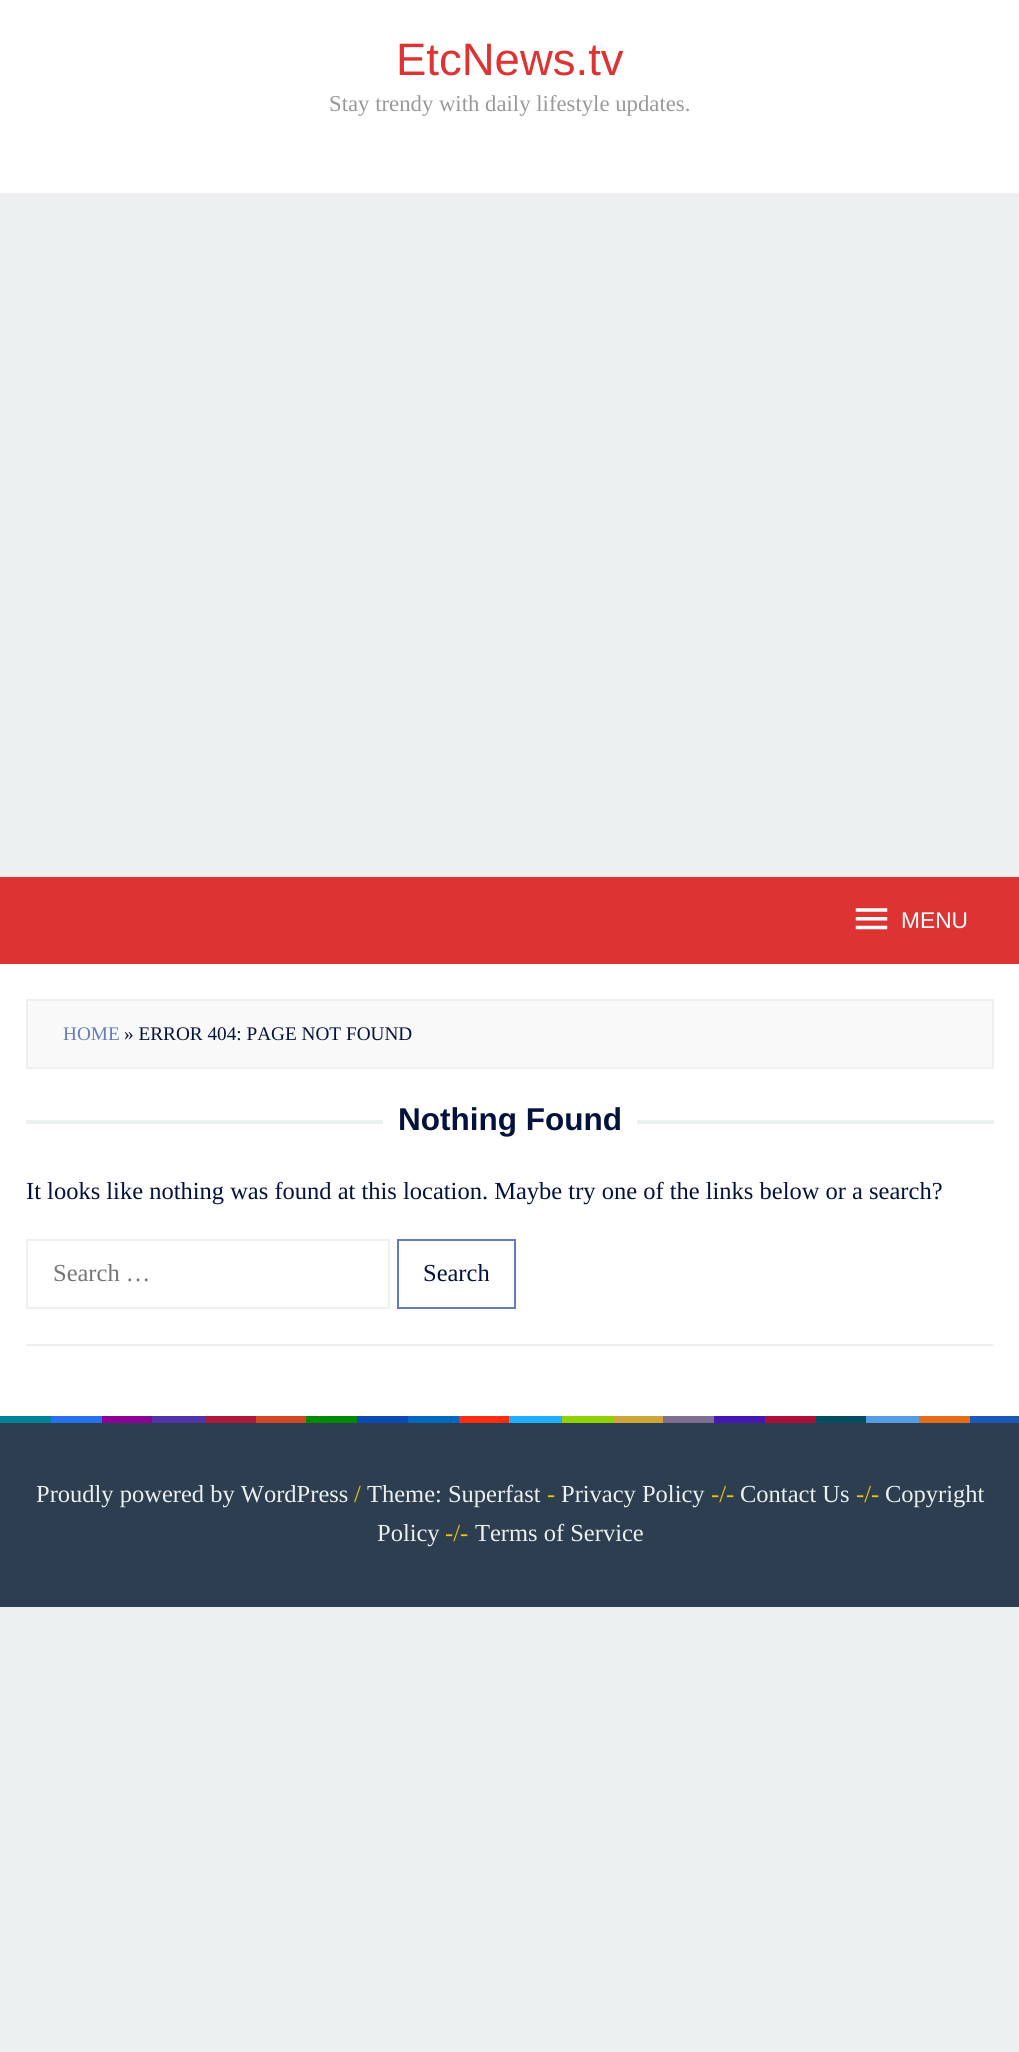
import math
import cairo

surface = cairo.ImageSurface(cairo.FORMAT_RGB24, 1019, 2052)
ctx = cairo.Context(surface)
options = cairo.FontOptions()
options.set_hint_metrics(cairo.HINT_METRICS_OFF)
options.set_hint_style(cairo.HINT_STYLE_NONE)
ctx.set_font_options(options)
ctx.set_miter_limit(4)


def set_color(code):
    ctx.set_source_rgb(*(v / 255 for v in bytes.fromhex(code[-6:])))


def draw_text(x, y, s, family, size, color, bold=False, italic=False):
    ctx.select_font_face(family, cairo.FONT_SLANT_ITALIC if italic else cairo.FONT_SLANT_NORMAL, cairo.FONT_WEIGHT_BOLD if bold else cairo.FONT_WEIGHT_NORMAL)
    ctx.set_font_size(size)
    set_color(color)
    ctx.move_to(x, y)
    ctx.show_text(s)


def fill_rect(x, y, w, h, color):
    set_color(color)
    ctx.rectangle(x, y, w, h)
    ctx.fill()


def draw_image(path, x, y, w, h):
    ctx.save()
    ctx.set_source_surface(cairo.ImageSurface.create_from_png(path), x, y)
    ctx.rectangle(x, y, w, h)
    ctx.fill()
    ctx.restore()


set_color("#ecf0f1")
ctx.paint()
fill_rect(0, 0, 1019, 193, "#ffffff")
draw_text(396, 75, "EtcNews.tv", "Liberation Sans", 45.5, "#dd3333")
draw_text(329, 111, "Stay trendy with daily lifestyle updates.", "Liberation Serif", 22.75, "#999999")
fill_rect(0, 877, 1019, 87, "#dd3333")
draw_image("assets/img1.png", 855, 908, 33, 22)
draw_text(901, 928, "MENU", "Liberation Sans", 22.75, "#ffffff")
fill_rect(0, 964, 1019, 452, "#ffffff")
set_color("#f9f9f9")
ctx.rectangle(27, 1000, 966, 68)
ctx.fill_preserve()
set_color("#ecf0f1")
ctx.stroke()
draw_text(63, 1040, "HOME", "Liberation Serif", 19.25, "#647cbd")
draw_text(124, 1040, "» ERROR 404: PAGE NOT FOUND", "Liberation Serif", 19.25, "#03123d")
fill_rect(26, 1344, 968, 2, "#ecf0f1")
fill_rect(26, 1120, 357, 4, "#ecf0f1")
draw_text(398, 1130, "Nothing Found", "Liberation Sans", 31.5, "#03123d", bold=True)
fill_rect(637, 1120, 357, 4, "#ecf0f1")
draw_text(26, 1199, "It looks like nothing was found at this location. Maybe try one of the links below or a search?", "Liberation Serif", 24.5, "#03123d")
ctx.rectangle(27, 1240, 362, 68)
set_color("#ecf0f1")
ctx.stroke()
draw_text(53, 1281, "Search …", "Liberation Serif", 24.5, "#757575")
ctx.rectangle(398, 1240, 117, 68)
set_color("#647cbd")
ctx.stroke()
draw_text(423, 1281, "Search", "Liberation Serif", 24.5, "#03123d")
fill_rect(0, 1416, 51, 7, "#008299")
fill_rect(51, 1416, 51, 7, "#2672ec")
fill_rect(102, 1416, 50, 7, "#8c0095")
fill_rect(152, 1416, 53, 7, "#5133ab")
fill_rect(205, 1416, 51, 7, "#ac193d")
fill_rect(256, 1416, 50, 7, "#d24726")
fill_rect(306, 1416, 51, 7, "#008a00")
fill_rect(357, 1416, 51, 7, "#094ab2")
fill_rect(408, 1416, 51, 7, "#006ac1")
fill_rect(459, 1416, 50, 7, "#ff2e12")
fill_rect(509, 1416, 53, 7, "#1faeff")
fill_rect(562, 1416, 51, 7, "#91d100")
fill_rect(613, 1416, 50, 7, "#cea539")
fill_rect(663, 1416, 51, 7, "#7f6e94")
fill_rect(714, 1416, 51, 7, "#4617b4")
fill_rect(765, 1416, 51, 7, "#ad103c")
fill_rect(816, 1416, 50, 7, "#004d60")
fill_rect(866, 1416, 53, 7, "#569ce3")
fill_rect(919, 1416, 51, 7, "#e56c19")
fill_rect(970, 1416, 49, 7, "#1b58b8")
fill_rect(0, 1423, 1019, 184, "#2c3e50")
draw_text(36, 1502, "Proudly powered by WordPress", "Liberation Serif", 24.5, "#ecf0f1")
draw_text(354, 1502, "/", "Liberation Serif", 24.5, "#f1c40f")
draw_text(367, 1502, "Theme: Superfast", "Liberation Serif", 24.5, "#ecf0f1")
draw_text(547, 1502, "-", "Liberation Serif", 24.5, "#f1c40f")
draw_text(561, 1502, "Privacy Policy", "Liberation Serif", 24.5, "#ecf0f1")
draw_text(711, 1502, "-/-", "Liberation Serif", 24.5, "#f1c40f")
draw_text(740, 1502, "Contact Us", "Liberation Serif", 24.5, "#ecf0f1")
draw_text(856, 1502, "-/-", "Liberation Serif", 24.5, "#f1c40f")
draw_text(885, 1502, "Copyright", "Liberation Serif", 24.5, "#ecf0f1")
draw_text(377, 1541, "Policy", "Liberation Serif", 24.5, "#ecf0f1")
draw_text(445, 1541, "-/-", "Liberation Serif", 24.5, "#f1c40f")
draw_text(475, 1541, "Terms of Service", "Liberation Serif", 24.5, "#ecf0f1")
surface.write_to_png("output.png")
